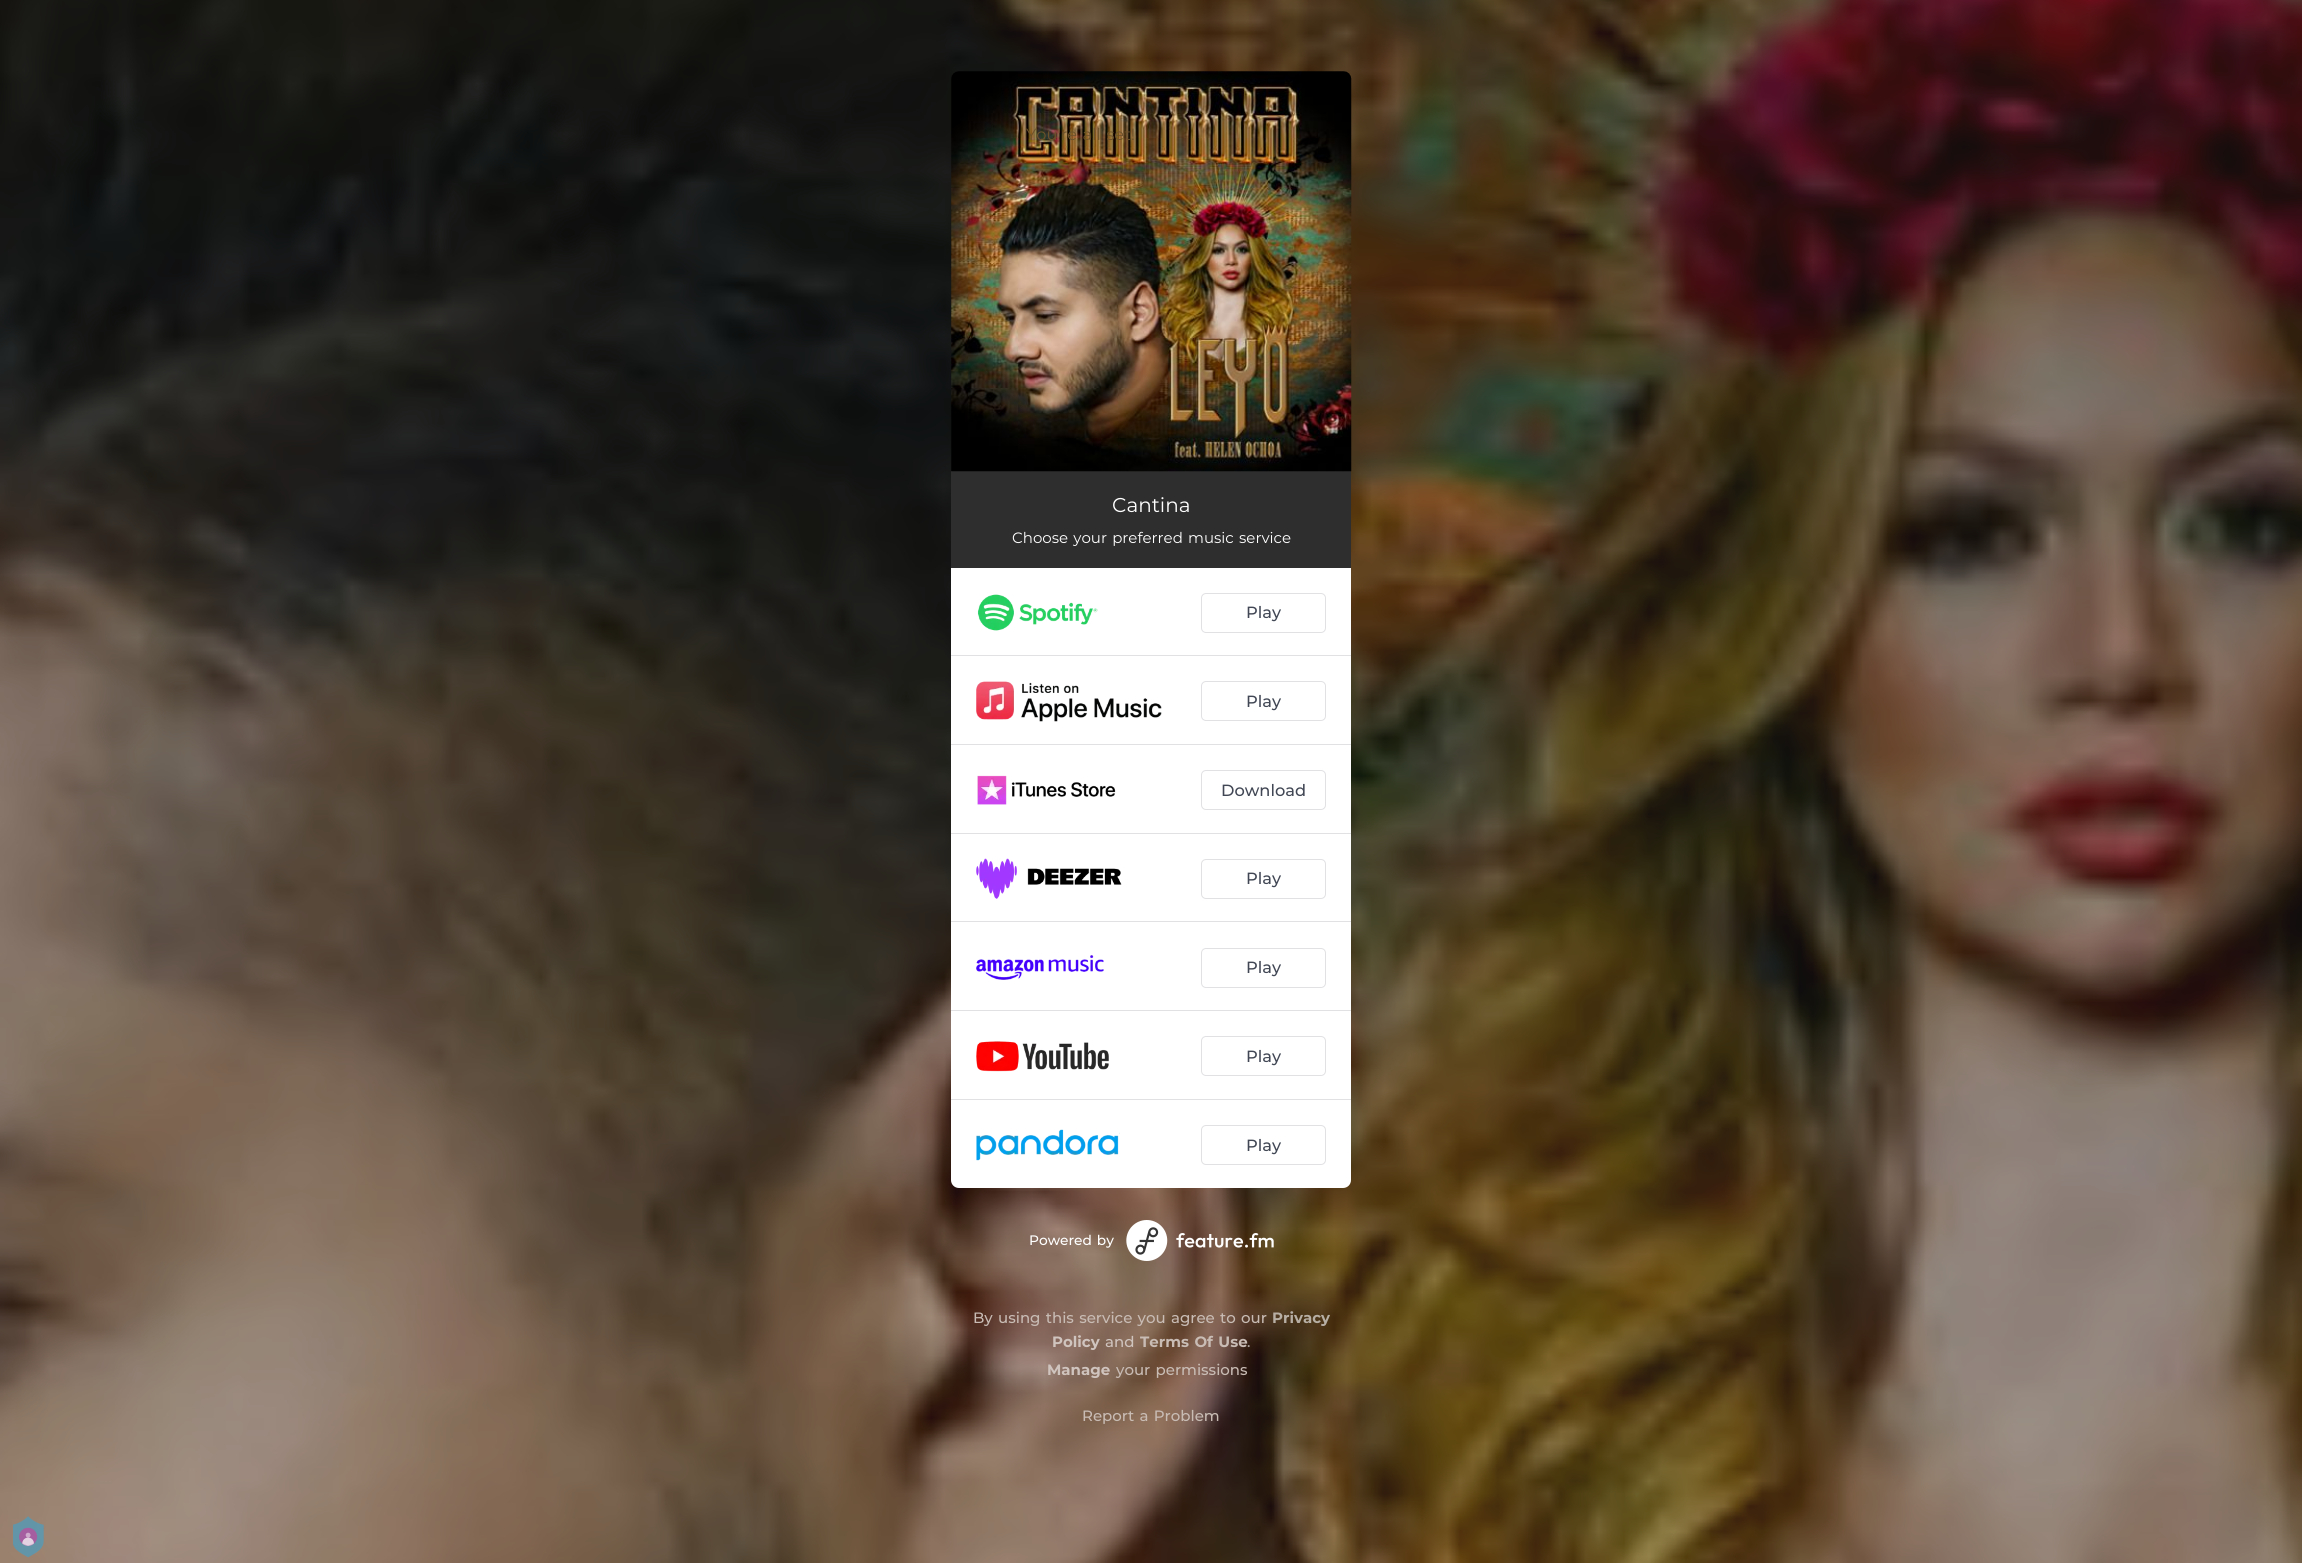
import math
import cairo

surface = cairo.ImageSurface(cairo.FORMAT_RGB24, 2302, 1563)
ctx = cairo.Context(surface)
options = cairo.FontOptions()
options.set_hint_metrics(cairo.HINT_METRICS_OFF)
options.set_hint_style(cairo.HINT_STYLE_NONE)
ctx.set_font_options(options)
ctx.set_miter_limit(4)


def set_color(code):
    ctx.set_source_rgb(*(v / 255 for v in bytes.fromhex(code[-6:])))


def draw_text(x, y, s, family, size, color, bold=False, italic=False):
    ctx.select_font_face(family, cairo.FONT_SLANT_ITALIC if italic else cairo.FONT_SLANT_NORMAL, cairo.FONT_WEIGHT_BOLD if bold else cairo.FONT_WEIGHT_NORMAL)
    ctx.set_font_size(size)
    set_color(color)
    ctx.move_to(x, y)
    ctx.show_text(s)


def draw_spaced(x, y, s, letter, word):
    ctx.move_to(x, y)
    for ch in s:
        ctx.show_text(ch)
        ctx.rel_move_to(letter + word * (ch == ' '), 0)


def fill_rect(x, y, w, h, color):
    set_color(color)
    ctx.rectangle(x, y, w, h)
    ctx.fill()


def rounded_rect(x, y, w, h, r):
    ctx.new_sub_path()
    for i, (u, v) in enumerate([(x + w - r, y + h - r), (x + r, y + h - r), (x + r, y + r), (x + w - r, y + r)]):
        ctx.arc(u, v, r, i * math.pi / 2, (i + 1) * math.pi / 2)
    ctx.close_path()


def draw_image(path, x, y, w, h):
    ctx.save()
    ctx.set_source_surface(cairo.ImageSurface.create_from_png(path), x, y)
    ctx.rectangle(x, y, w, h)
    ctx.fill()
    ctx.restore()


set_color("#ffffff")
ctx.paint()
draw_image("assets/img1.png", 0, 0, 2302, 1563)
fill_rect(951, 471, 400, 97, "#2e2e2e")
draw_image("assets/img2.png", 951, 71, 401, 401)
ctx.select_font_face("Montserrat")
ctx.set_font_size(16.25)
set_color("#6d522b")
draw_spaced(1026, 140, "You're all set!", 0, 1.25)
draw_text(1112, 512, "Cantina", "Montserrat", 20, "#ffffff")
ctx.set_font_size(15)
draw_spaced(1012, 543, "Choose your preferred music service", 0, 1.25)
ctx.new_path()
ctx.move_to(951, 568)
ctx.line_to(1351, 568)
ctx.line_to(1351, 1180)
ctx.curve_to(1351, 1184.5, 1347.5, 1188, 1343, 1188)
ctx.line_to(959, 1188)
ctx.curve_to(954.5, 1188, 951, 1184.5, 951, 1180)
ctx.close_path()
ctx.fill()
fill_rect(951, 655, 400, 1, "#e1e1e4")
draw_image("assets/img3.png", 977, 594, 121, 37)
rounded_rect(1201.5, 593.5, 124, 39, 4.5)
ctx.set_line_width(1)
ctx.stroke()
draw_text(1246, 618, "Play", "Montserrat Medium", 16.25, "#414754")
fill_rect(951, 744, 400, 1, "#e1e1e4")
draw_image("assets/img4.png", 976, 681, 186, 41)
rounded_rect(1201.5, 681.5, 124, 39, 4.5)
ctx.stroke()
draw_text(1246, 707, "Play", "Montserrat Medium", 16.25, "#414754")
fill_rect(951, 833, 400, 1, "#e1e1e4")
draw_image("assets/img5.png", 977, 775, 139, 30)
rounded_rect(1201.5, 770.5, 124, 39, 4.5)
ctx.stroke()
draw_text(1221, 796, "Download", "Montserrat Medium", 16.25, "#414754")
fill_rect(951, 921, 400, 1, "#e1e1e4")
draw_image("assets/img6.png", 976, 858, 146, 41)
rounded_rect(1201.5, 859.5, 124, 39, 4.5)
ctx.stroke()
draw_text(1246, 884, "Play", "Montserrat Medium", 16.25, "#414754")
fill_rect(951, 1010, 400, 1, "#e1e1e4")
draw_image("assets/img7.png", 976, 955, 128, 25)
rounded_rect(1201.5, 948.5, 124, 39, 4.5)
ctx.stroke()
draw_text(1246, 973, "Play", "Montserrat Medium", 16.25, "#414754")
fill_rect(951, 1099, 400, 1, "#e1e1e4")
draw_image("assets/img8.png", 976, 1041, 133, 31)
rounded_rect(1201.5, 1036.5, 124, 39, 4.5)
ctx.stroke()
draw_text(1246, 1062, "Play", "Montserrat Medium", 16.25, "#414754")
draw_image("assets/img9.png", 976, 1129, 144, 32)
rounded_rect(1201.5, 1125.5, 124, 39, 4.5)
set_color("#e1e1e4")
ctx.stroke()
draw_text(1246, 1151, "Play", "Montserrat Medium", 16.25, "#414754")
ctx.set_font_size(13.75)
set_color("#ffffff")
draw_spaced(1029, 1245, "Powered by", 0, 1.25)
draw_image("assets/img10.png", 1126, 1220, 148, 41)
ctx.set_font_size(15)
set_color("#c8bcb5")
draw_spaced(973, 1323, "By using this service you agree to our", 0, 1.25)
draw_text(1272, 1323, "Privacy", "Montserrat", 15, "#b7aea4", bold=True)
draw_text(1052, 1347, "Policy", "Montserrat", 15, "#d0c4bf", bold=True)
draw_text(1105, 1347, "and", "Montserrat Medium", 15, "#d0c4bf")
ctx.select_font_face("Montserrat", cairo.FONT_SLANT_NORMAL, cairo.FONT_WEIGHT_BOLD)
set_color("#c8bcb5")
draw_spaced(1140, 1347, "Terms Of Use", 0, 1.25)
draw_text(1247, 1347, ".", "Montserrat Medium", 15, "#ada4a0")
draw_text(1047, 1375, "Manage", "Montserrat", 15, "#d0c4bf", bold=True)
ctx.select_font_face("Montserrat Medium")
set_color("#c8bcb5")
draw_spaced(1116, 1375, "your permissions", 0, 1.25)
draw_spaced(1082, 1421, "Report a Problem", 0, 1.25)
draw_image("assets/img11.png", 13, 1516, 31, 42)
surface.write_to_png("output.png")
